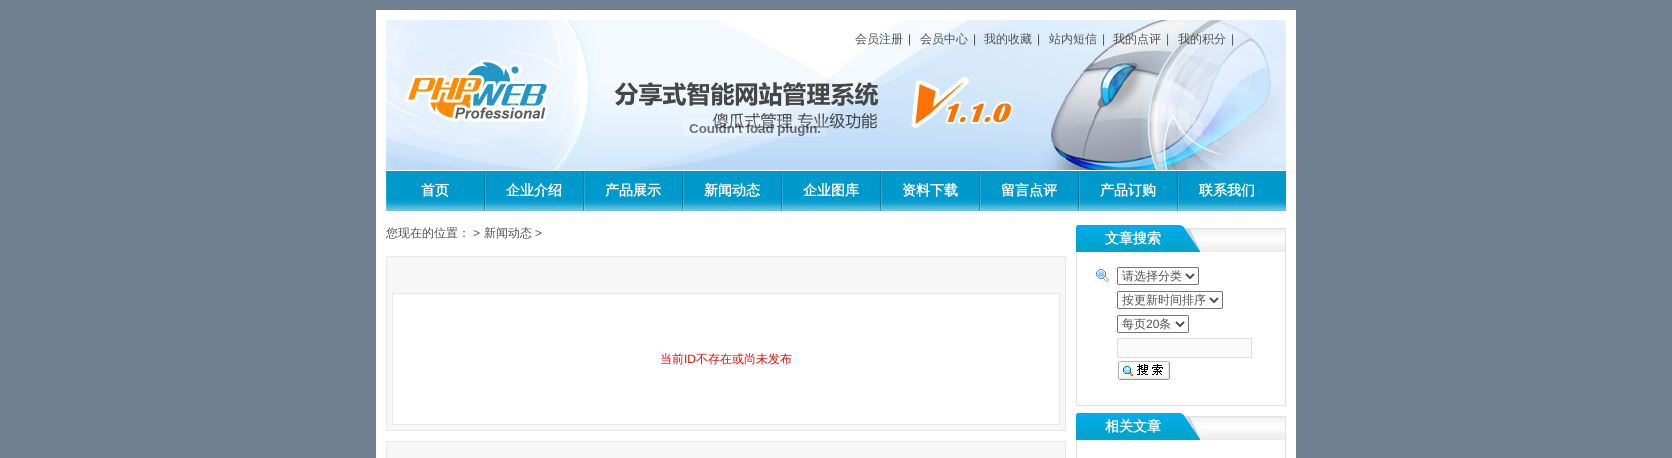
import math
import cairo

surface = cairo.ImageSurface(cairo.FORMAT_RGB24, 1672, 458)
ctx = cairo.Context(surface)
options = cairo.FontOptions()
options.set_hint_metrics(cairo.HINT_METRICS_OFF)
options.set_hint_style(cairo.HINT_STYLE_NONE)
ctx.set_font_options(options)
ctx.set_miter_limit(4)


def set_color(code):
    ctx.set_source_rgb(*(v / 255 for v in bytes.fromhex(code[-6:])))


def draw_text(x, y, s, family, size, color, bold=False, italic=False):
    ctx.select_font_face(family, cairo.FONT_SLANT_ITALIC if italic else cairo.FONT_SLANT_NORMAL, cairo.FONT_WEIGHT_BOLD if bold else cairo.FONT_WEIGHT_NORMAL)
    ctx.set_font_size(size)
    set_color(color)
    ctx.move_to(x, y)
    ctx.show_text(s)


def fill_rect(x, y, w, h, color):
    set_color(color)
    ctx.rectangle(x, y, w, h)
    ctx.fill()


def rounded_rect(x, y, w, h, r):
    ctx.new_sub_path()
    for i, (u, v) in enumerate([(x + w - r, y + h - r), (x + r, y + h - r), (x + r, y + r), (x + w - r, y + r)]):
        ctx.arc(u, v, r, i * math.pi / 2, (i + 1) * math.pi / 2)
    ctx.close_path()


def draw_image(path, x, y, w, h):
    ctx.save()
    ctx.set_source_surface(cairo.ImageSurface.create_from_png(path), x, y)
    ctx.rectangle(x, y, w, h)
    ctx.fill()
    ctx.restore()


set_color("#708090")
ctx.paint()
fill_rect(376, 10, 920, 448, "#ffffff")
draw_image("assets/img1.png", 386, 20, 900, 150)
draw_text(855, 43, "会员注册", "WenQuanYi Zen Hei Medium", 12, "#505050")
draw_text(908, 43, "|", "Liberation Sans", 12, "#505050")
draw_text(920, 43, "会员中心", "WenQuanYi Zen Hei Medium", 12, "#505050")
draw_text(973, 43, "|", "Liberation Sans", 12, "#505050")
draw_text(984, 43, "我的收藏", "WenQuanYi Zen Hei Medium", 12, "#505050")
draw_text(1037, 43, "|", "Liberation Sans", 12, "#505050")
draw_text(1049, 43, "站内短信", "WenQuanYi Zen Hei Medium", 12, "#505050")
draw_text(1102, 43, "|", "Liberation Sans", 12, "#505050")
draw_text(1113, 43, "我的点评", "WenQuanYi Zen Hei Medium", 12, "#505050")
draw_text(1166, 43, "|", "Liberation Sans", 12, "#505050")
draw_text(1178, 43, "我的积分", "WenQuanYi Zen Hei Medium", 12, "#505050")
draw_text(1231, 43, "|", "Liberation Sans", 12, "#505050")
draw_image("assets/img2.png", 683, 119, 144, 18)
draw_image("assets/img3.png", 390, 171, 896, 40)
draw_image("assets/img4.png", 386, 171, 4, 40)
draw_text(421, 195, "首页", "WenQuanYi Zen Hei", 14, "#ffffff", bold=True)
draw_image("assets/img5.png", 484, 171, 6, 40)
draw_text(506, 195, "企业介绍", "WenQuanYi Zen Hei", 14, "#ffffff", bold=True)
draw_image("assets/img6.png", 583, 171, 7, 40)
draw_text(605, 195, "产品展示", "WenQuanYi Zen Hei", 14, "#ffffff", bold=True)
draw_image("assets/img7.png", 682, 171, 8, 40)
draw_text(704, 195, "新闻动态", "WenQuanYi Zen Hei", 14, "#ffffff", bold=True)
draw_image("assets/img8.png", 781, 171, 9, 40)
draw_text(803, 195, "企业图库", "WenQuanYi Zen Hei", 14, "#ffffff", bold=True)
draw_image("assets/img9.png", 880, 171, 10, 40)
draw_text(902, 195, "资料下载", "WenQuanYi Zen Hei", 14, "#ffffff", bold=True)
draw_image("assets/img10.png", 979, 171, 11, 40)
draw_text(1001, 195, "留言点评", "WenQuanYi Zen Hei", 14, "#ffffff", bold=True)
draw_image("assets/img11.png", 1078, 171, 12, 40)
draw_text(1100, 195, "产品订购", "WenQuanYi Zen Hei", 14, "#ffffff", bold=True)
draw_image("assets/img12.png", 1177, 171, 13, 40)
draw_text(1199, 195, "联系我们", "WenQuanYi Zen Hei", 14, "#ffffff", bold=True)
draw_text(386, 237, "您现在的位置：", "WenQuanYi Zen Hei Medium", 12, "#505050")
draw_text(473, 237, ">", "Liberation Sans", 12, "#505050")
draw_text(484, 237, "新闻动态", "WenQuanYi Zen Hei Medium", 12, "#505050")
draw_text(535, 237, ">", "Liberation Sans", 12, "#505050")
ctx.rectangle(1076.5, 225.5, 209, 180)
set_color("#e2e2e2")
ctx.set_line_width(1)
ctx.stroke()
draw_image("assets/img13.png", 1076, 225, 210, 27)
draw_text(1105, 243, "文章搜索", "WenQuanYi Zen Hei", 14, "#ffffff", bold=True)
draw_image("assets/img14.png", 1285, 229, 1, 23)
draw_image("assets/img15.png", 1096, 269, 13, 13)
rounded_rect(1117.5, 267.5, 81, 17, 1.5)
set_color("#767676")
ctx.stroke()
ctx.new_path()
ctx.move_to(1186, 274)
ctx.line_to(1190, 278)
ctx.line_to(1194, 274)
set_color("#505050")
ctx.set_line_width(2)
ctx.stroke()
draw_text(1122, 280, "请选择分类", "WenQuanYi Zen Hei Medium", 12, "#505050")
rounded_rect(1117.5, 291.5, 105, 17, 1.5)
set_color("#767676")
ctx.set_line_width(1)
ctx.stroke()
ctx.new_path()
ctx.move_to(1210, 298)
ctx.line_to(1214, 302)
ctx.line_to(1218, 298)
set_color("#505050")
ctx.set_line_width(2)
ctx.stroke()
draw_text(1122, 304, "按更新时间排序", "WenQuanYi Zen Hei Medium", 12, "#505050")
rounded_rect(1117.5, 315.5, 71, 17, 1.5)
set_color("#767676")
ctx.set_line_width(1)
ctx.stroke()
ctx.new_path()
ctx.move_to(1176, 322)
ctx.line_to(1180, 326)
ctx.line_to(1184, 322)
set_color("#505050")
ctx.set_line_width(2)
ctx.stroke()
draw_text(1122, 328, "每页", "WenQuanYi Zen Hei Medium", 12, "#505050")
draw_text(1146, 328, "20", "Liberation Sans", 12, "#505050")
draw_text(1159, 328, "条", "WenQuanYi Zen Hei Medium", 12, "#505050")
set_color("#fbfbfb")
ctx.rectangle(1117.5, 338.5, 134, 19)
ctx.fill_preserve()
set_color("#dddddd")
ctx.set_line_width(1)
ctx.stroke()
draw_image("assets/img16.png", 1118, 361, 52, 19)
set_color("#f7f7f7")
ctx.rectangle(386.5, 256.5, 679, 174)
ctx.fill_preserve()
set_color("#e8e8e8")
ctx.stroke()
fill_rect(393, 294, 666, 130, "#ffffff")
fill_rect(1059, 294, 1, 131, "#e8e8e8")
fill_rect(392, 424, 668, 1, "#e8e8e8")
fill_rect(392, 294, 1, 131, "#e8e8e8")
fill_rect(392, 293, 668, 1, "#e8e8e8")
draw_text(660, 363, "当前", "WenQuanYi Zen Hei Medium", 12, "#ff0000")
draw_text(684, 363, "ID", "Liberation Sans", 12, "#ff0000")
draw_text(696, 363, "不存在或尚未发布", "WenQuanYi Zen Hei Medium", 12, "#ff0000")
ctx.rectangle(1076.5, 413.5, 209, 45)
set_color("#e2e2e2")
ctx.stroke()
draw_image("assets/img13.png", 1076, 413, 210, 27)
draw_text(1105, 431, "相关文章", "WenQuanYi Zen Hei", 14, "#ffffff", bold=True)
draw_image("assets/img14.png", 1285, 417, 1, 23)
set_color("#f7f7f7")
ctx.rectangle(386.5, 441.5, 679, 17)
ctx.fill_preserve()
set_color("#e8e8e8")
ctx.stroke()
surface.write_to_png("output.png")
